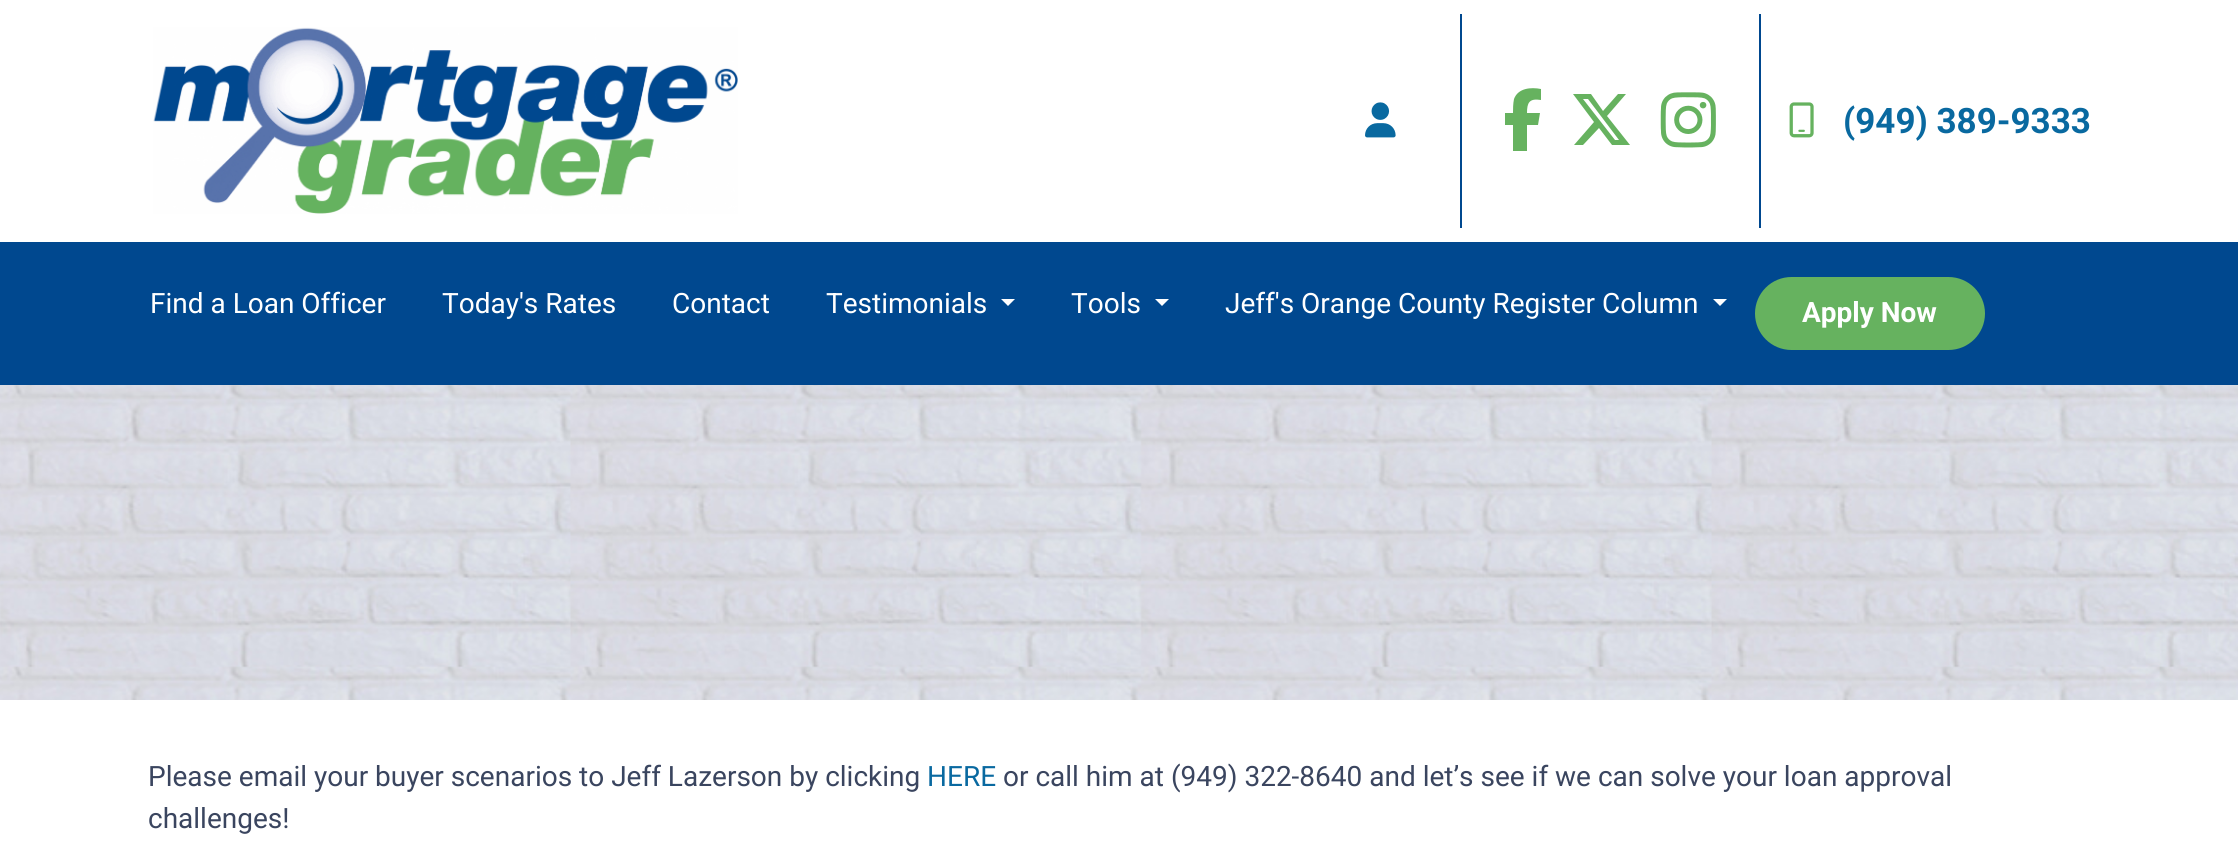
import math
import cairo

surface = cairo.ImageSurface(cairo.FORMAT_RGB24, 2238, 863)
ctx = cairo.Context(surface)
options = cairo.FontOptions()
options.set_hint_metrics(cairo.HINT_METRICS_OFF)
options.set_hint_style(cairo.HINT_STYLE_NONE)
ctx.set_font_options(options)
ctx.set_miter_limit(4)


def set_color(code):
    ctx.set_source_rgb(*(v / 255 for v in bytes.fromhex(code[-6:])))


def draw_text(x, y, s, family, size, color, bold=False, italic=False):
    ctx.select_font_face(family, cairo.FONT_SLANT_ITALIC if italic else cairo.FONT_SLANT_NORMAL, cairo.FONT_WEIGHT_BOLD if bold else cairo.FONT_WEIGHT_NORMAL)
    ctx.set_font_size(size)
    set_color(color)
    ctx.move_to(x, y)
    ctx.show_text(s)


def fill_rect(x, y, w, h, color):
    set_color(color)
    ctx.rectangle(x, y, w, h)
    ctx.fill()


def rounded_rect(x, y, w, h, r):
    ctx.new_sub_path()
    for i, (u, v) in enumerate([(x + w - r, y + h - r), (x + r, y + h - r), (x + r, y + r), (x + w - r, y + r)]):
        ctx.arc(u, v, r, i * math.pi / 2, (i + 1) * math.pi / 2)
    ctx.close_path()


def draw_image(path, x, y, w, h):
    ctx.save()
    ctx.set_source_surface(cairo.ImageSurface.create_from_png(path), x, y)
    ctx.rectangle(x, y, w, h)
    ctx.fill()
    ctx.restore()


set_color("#ffffff")
ctx.paint()
draw_image("assets/img1.png", 153, 27, 585, 187)
draw_image("assets/img2.png", 1365, 102, 31, 36)
fill_rect(1460, 14, 2, 214, "#00488f")
set_color("#66b25f")
ctx.new_path()
ctx.move_to(1513, 125)
ctx.line_to(1513, 151)
ctx.line_to(1513, 125)
ctx.line_to(1513, 151)
ctx.line_to(1527, 151)
ctx.line_to(1527, 125)
ctx.line_to(1538, 125)
ctx.line_to(1540, 113)
ctx.line_to(1527, 113)
ctx.curve_to(1527, 103, 1529, 98, 1541, 100)
ctx.line_to(1541, 89)
ctx.curve_to(1531, 87, 1518, 88, 1514, 99)
ctx.curve_to(1513, 104, 1513, 109, 1513, 113)
ctx.line_to(1505, 113)
ctx.line_to(1505, 125)
ctx.close_path()
ctx.fill()
ctx.new_path()
ctx.move_to(1618, 94)
ctx.line_to(1626, 94)
ctx.line_to(1618, 94)
ctx.line_to(1626, 94)
ctx.line_to(1607, 116)
ctx.line_to(1630, 145)
ctx.line_to(1612, 145)
ctx.line_to(1599, 128)
ctx.line_to(1583, 145)
ctx.line_to(1574, 145)
ctx.line_to(1594, 122)
ctx.line_to(1573, 94)
ctx.line_to(1591, 94)
ctx.line_to(1603, 111)
ctx.close_path()
ctx.move_to(1615, 140)
ctx.line_to(1619, 140)
ctx.line_to(1615, 140)
ctx.line_to(1619, 140)
ctx.line_to(1588, 99)
ctx.line_to(1583, 99)
ctx.close_path()
ctx.fill()
draw_image("assets/img3.png", 1660, 92, 56, 56)
fill_rect(1759, 14, 2, 214, "#00488f")
draw_image("assets/img4.png", 1789, 102, 25, 36)
draw_text(1843, 133, "(949) 389-9333", "Roboto", 35, "#0969a0", bold=True)
fill_rect(0, 242, 2238, 143, "#00488f")
draw_text(150, 313, "Find a Loan Officer", "Roboto", 28, "#ffffff")
draw_text(442, 313, "Today's Rates", "Roboto", 28, "#ffffff")
draw_text(672, 313, "Contact", "Roboto", 28, "#ffffff")
draw_text(826, 313, "Testimonials", "Roboto", 28, "#ffffff")
ctx.new_path()
ctx.move_to(1001, 299)
ctx.line_to(1015, 299)
ctx.line_to(1008, 306)
ctx.close_path()
ctx.fill()
draw_text(1071, 313, "Tools", "Roboto", 28, "#ffffff")
ctx.new_path()
ctx.move_to(1155, 299)
ctx.line_to(1169, 299)
ctx.line_to(1162, 306)
ctx.close_path()
ctx.fill()
draw_text(1225, 313, "Jeff's Orange County Register Column", "Roboto", 28, "#ffffff")
ctx.new_path()
ctx.move_to(1713, 299)
ctx.line_to(1727, 299)
ctx.line_to(1720, 306)
ctx.close_path()
ctx.fill()
set_color("#66b25f")
rounded_rect(1757.5, 279.5, 225, 68, 34)
ctx.fill_preserve()
ctx.set_line_width(5)
ctx.stroke()
draw_text(1802, 322, "Apply Now", "Roboto", 28, "#ffffff", bold=True)
draw_image("assets/img5.png", 0, 385, 2238, 315)
draw_text(148, 786, "Please email your buyer scenarios to Jeff Lazerson by clicking", "Roboto", 28, "#3a455f")
draw_text(927, 786, "HERE", "Roboto", 28, "#0969a0")
draw_text(1003, 786, "or call him at (949) 322-8640 and let’s see if we can solve your loan approval", "Roboto", 28, "#3a455f")
draw_text(148, 828, "challenges!", "Roboto", 28, "#3a455f")
surface.write_to_png("output.png")
